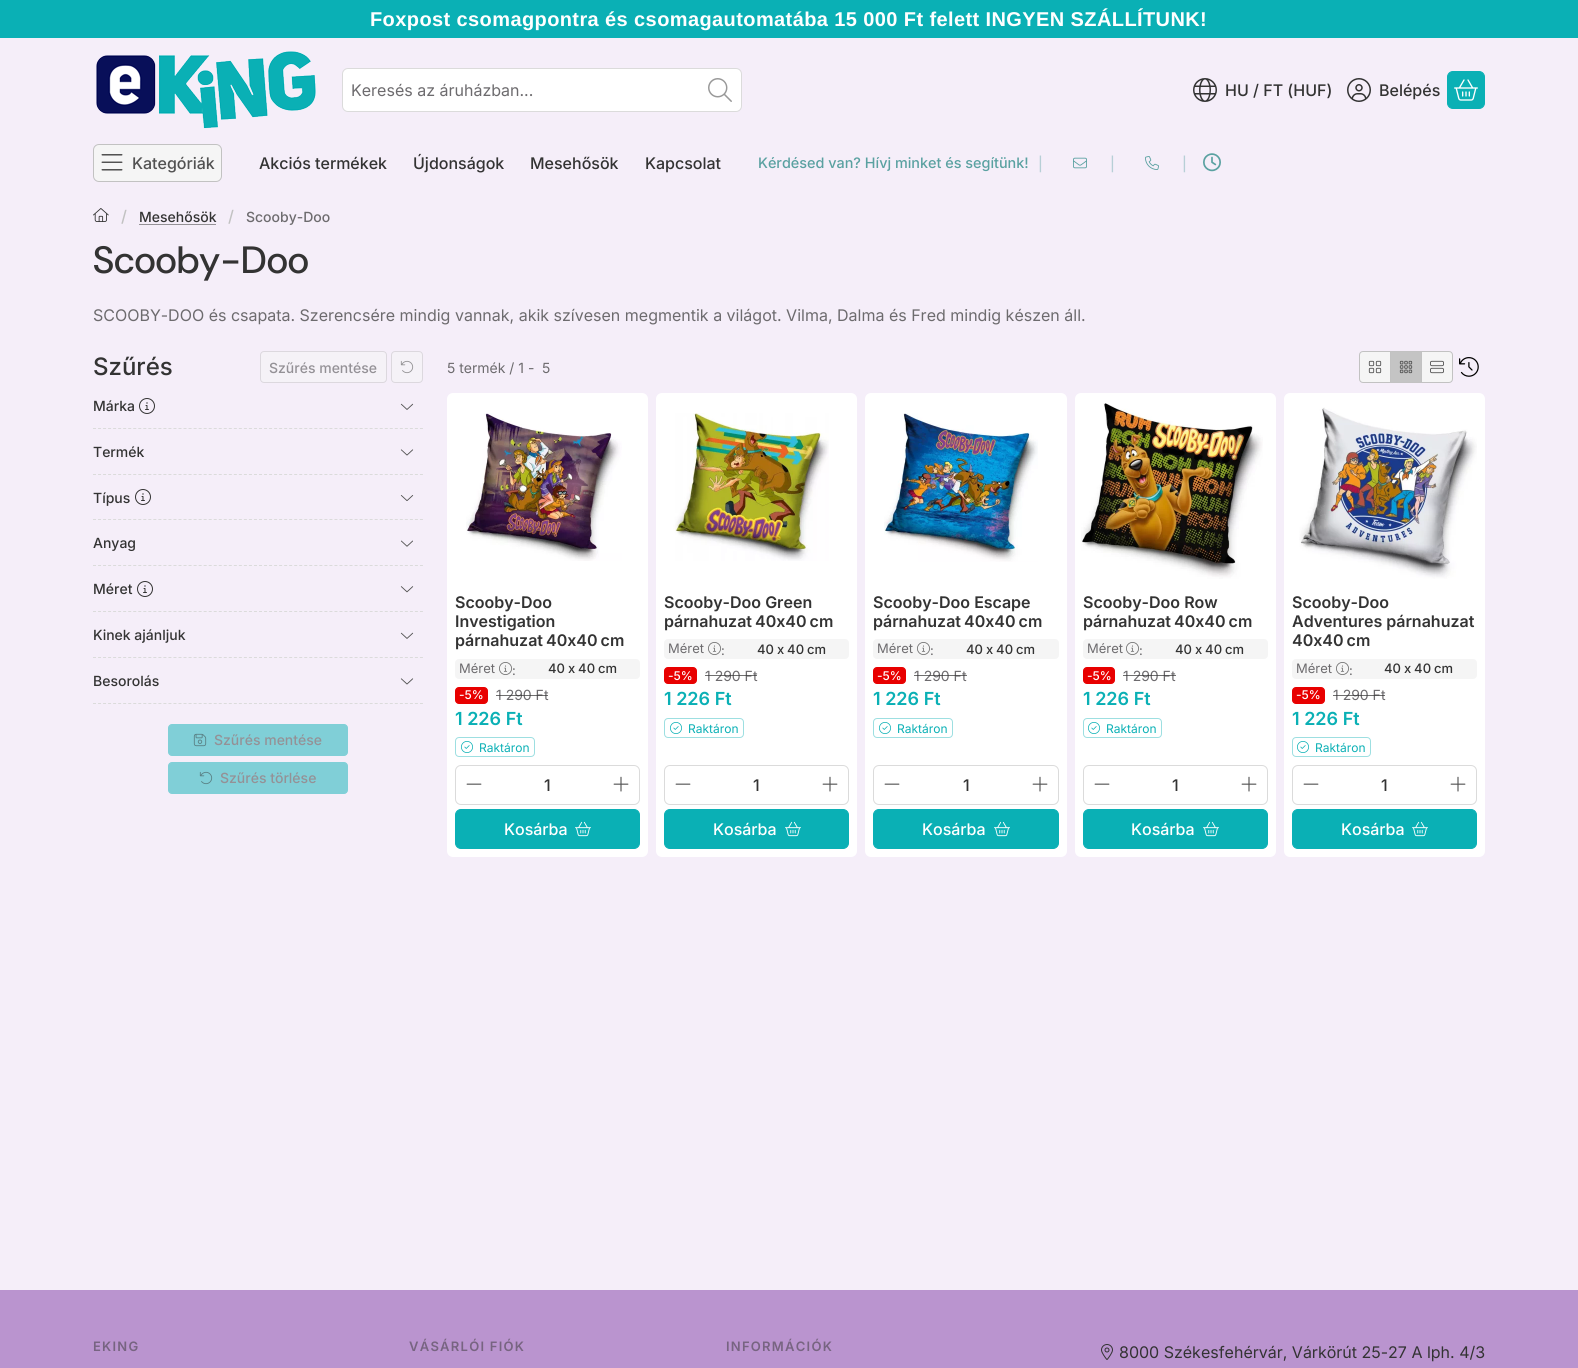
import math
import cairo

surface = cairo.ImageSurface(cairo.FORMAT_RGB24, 1578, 1368)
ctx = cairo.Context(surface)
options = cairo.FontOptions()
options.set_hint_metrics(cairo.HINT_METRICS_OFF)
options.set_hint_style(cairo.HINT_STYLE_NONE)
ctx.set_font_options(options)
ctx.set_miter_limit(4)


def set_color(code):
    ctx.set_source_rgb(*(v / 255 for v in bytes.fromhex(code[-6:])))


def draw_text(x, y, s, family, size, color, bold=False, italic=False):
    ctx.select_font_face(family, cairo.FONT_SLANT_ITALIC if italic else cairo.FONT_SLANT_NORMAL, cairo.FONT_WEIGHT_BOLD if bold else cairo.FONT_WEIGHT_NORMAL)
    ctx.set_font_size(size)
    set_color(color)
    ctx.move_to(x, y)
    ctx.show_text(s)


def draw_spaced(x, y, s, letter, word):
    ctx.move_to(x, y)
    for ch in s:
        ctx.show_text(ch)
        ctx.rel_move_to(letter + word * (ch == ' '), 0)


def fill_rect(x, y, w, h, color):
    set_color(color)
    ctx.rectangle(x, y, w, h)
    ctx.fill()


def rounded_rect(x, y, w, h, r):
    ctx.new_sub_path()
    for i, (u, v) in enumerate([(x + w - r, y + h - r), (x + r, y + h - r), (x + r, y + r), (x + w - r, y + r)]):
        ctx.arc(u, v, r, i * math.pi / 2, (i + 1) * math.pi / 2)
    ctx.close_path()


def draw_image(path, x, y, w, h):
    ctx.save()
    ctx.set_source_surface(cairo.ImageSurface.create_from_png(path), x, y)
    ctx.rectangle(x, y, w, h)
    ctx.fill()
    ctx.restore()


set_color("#f5eef9")
ctx.paint()
fill_rect(0, 0, 1578, 38, "#0ab0b5")
ctx.select_font_face("Liberation Sans", cairo.FONT_SLANT_NORMAL, cairo.FONT_WEIGHT_BOLD)
ctx.set_font_size(20)
set_color("#ffffff")
draw_spaced(370, 26, "Foxpost csomagpontra és csomagautomatába 15 000 Ft felett INGYEN SZÁLLÍTUNK!", 0.4, 0)
draw_image("assets/img1.png", 96, 51, 220, 78)
rounded_rect(342.5, 68.5, 399, 43, 5.5)
ctx.fill_preserve()
set_color("#dbdbdb")
ctx.set_line_width(1)
ctx.stroke()
draw_text(351, 96, "Keresés az áruházban...", "Inter", 16, "#6d6b6e")
draw_image("assets/img2.png", 708, 78, 24, 24)
draw_image("assets/img3.png", 1193, 78, 24, 24)
draw_text(1225, 96, "HU / FT (HUF)", "Inter Medium", 16, "#333333")
draw_image("assets/img4.png", 1347, 78, 24, 24)
draw_text(1379, 96, "Belépés", "Inter Medium", 16, "#333333")
set_color("#0ab0b5")
rounded_rect(1447.5, 71.5, 37, 37, 5.5)
ctx.fill_preserve()
ctx.stroke()
draw_image("assets/img5.png", 1454, 79, 24, 22)
set_color("#f5f5f5")
rounded_rect(93.5, 144.5, 128, 37, 5.5)
ctx.fill_preserve()
set_color("#c2c2c2")
ctx.stroke()
draw_image("assets/img6.png", 101, 154, 22, 17)
draw_text(132, 169, "Kategóriák", "Inter Medium", 16, "#525252")
draw_text(259, 169, "Akciós termékek", "Inter Medium", 16, "#333333")
draw_text(413, 169, "Újdonságok", "Inter Medium", 16, "#333333")
draw_text(530, 169, "Mesehősök", "Inter Medium", 16, "#333333")
draw_text(645, 169, "Kapcsolat", "Inter Medium", 16, "#333333")
draw_text(758, 168, "Kérdésed van? Hívj minket és segítünk!", "Inter Medium", 14.4, "#5aa1a1")
draw_text(1038, 169, "|", "Inter Medium", 14, "#b7cfd6")
draw_image("assets/img7.png", 1073, 157, 14, 12)
draw_text(1110, 169, "|", "Inter Medium", 14, "#b7cfd6")
draw_image("assets/img8.png", 1145, 156, 14, 14)
draw_text(1182, 169, "|", "Inter Medium", 14, "#b7cfd6")
draw_image("assets/img9.png", 1203, 153, 18, 19)
draw_image("assets/img10.png", 93, 208, 16, 14)
draw_text(121, 222, "/", "Inter Medium", 16, "#c2c2c2")
draw_text(139, 222, "Mesehősök", "Inter Medium", 14, "#333333")
fill_rect(139, 224, 77, 1, "#949196")
draw_text(228, 222, "/", "Inter Medium", 16, "#c2c2c2")
draw_text(246, 222, "Scooby-Doo", "Inter Medium", 14, "#6d6b6e")
draw_text(93, 273, "Scooby-Doo", "DM Sans Medium", 38, "#333333")
draw_text(93, 321, "SCOOBY-DOO és csapata. Szerencsére mindig vannak, akik szívesen megmentik a világot. Vilma, Dalma és Fred mindig készen áll.", "Inter", 16, "#6d6b6e")
draw_text(93, 375, "Szűrés", "Inter Medium", 24, "#333333")
set_color("#f5f2f7")
rounded_rect(260.5, 351.5, 126, 31, 3.5)
ctx.fill_preserve()
set_color("#dcd8de")
ctx.stroke()
draw_text(269, 373, "Szűrés mentése", "Inter Medium", 14, "#949196")
set_color("#f5f2f7")
rounded_rect(391.5, 351.5, 31, 31, 3.5)
ctx.fill_preserve()
set_color("#dcd8de")
ctx.stroke()
draw_image("assets/img11.png", 400, 360, 14, 14)
draw_text(93, 411, "Márka", "Inter Medium", 14, "#333333")
draw_image("assets/img12.png", 139, 398, 16, 16)
draw_image("assets/img13.png", 400, 403, 14, 7)
ctx.new_path()
ctx.move_to(93, 428.5)
ctx.line_to(423, 428.5)
set_color("#dbdbdb")
ctx.set_dash([3, 2.03])
ctx.stroke()
draw_text(93, 457, "Termék", "Inter Medium", 14, "#333333")
draw_image("assets/img14.png", 400, 449, 14, 7)
ctx.new_path()
ctx.move_to(93, 474.5)
ctx.line_to(423, 474.5)
set_color("#dbdbdb")
ctx.stroke()
draw_text(93, 503, "Típus", "Inter Medium", 14, "#333333")
draw_image("assets/img12.png", 135, 489, 16, 16)
draw_image("assets/img15.png", 400, 495, 14, 6)
ctx.new_path()
ctx.move_to(93, 519.5)
ctx.line_to(423, 519.5)
set_color("#dbdbdb")
ctx.stroke()
draw_text(93, 548, "Anyag", "Inter Medium", 14, "#333333")
draw_image("assets/img16.png", 401, 540, 12, 7)
ctx.new_path()
ctx.move_to(93, 565.5)
ctx.line_to(423, 565.5)
set_color("#dbdbdb")
ctx.stroke()
draw_text(93, 594, "Méret", "Inter Medium", 14, "#333333")
draw_image("assets/img12.png", 137, 581, 16, 16)
draw_image("assets/img17.png", 400, 586, 14, 7)
ctx.new_path()
ctx.move_to(93, 611.5)
ctx.line_to(423, 611.5)
set_color("#dbdbdb")
ctx.stroke()
draw_text(93, 640, "Kinek ajánljuk", "Inter Medium", 14, "#333333")
draw_image("assets/img18.png", 400, 632, 14, 7)
ctx.new_path()
ctx.move_to(93, 657.5)
ctx.line_to(423, 657.5)
set_color("#dbdbdb")
ctx.stroke()
draw_text(93, 686, "Besorolás", "Inter Medium", 14, "#333333")
draw_image("assets/img19.png", 400, 678, 14, 7)
ctx.new_path()
ctx.move_to(93, 703.5)
ctx.line_to(423, 703.5)
set_color("#dbdbdb")
ctx.stroke()
set_color("#80cfd7")
rounded_rect(168.5, 724.5, 179, 31, 3.5)
ctx.fill_preserve()
ctx.set_dash([])
ctx.stroke()
draw_image("assets/img20.png", 193, 733, 14, 14)
draw_text(214, 745, "Szűrés mentése", "Inter Medium", 14, "#949196")
set_color("#80cfd7")
rounded_rect(168.5, 762.5, 179, 31, 3.5)
ctx.fill_preserve()
ctx.stroke()
draw_image("assets/img21.png", 199, 771, 14, 14)
draw_text(220, 783, "Szűrés törlése", "Inter Medium", 14, "#949196")
draw_text(447, 373, "5 termék / 1 -", "Inter", 14, "#6d6b6e")
draw_text(542, 373, "5", "Inter", 14, "#6d6b6e")
set_color("#f5f5f5")
ctx.new_path()
ctx.move_to(1363, 351.5)
ctx.line_to(1390.5, 351.5)
ctx.line_to(1390.5, 382.5)
ctx.line_to(1363, 382.5)
ctx.curve_to(1361, 382.5, 1359.5, 381, 1359.5, 379)
ctx.line_to(1359.5, 355)
ctx.curve_to(1359.5, 353, 1361, 351.5, 1363, 351.5)
ctx.close_path()
ctx.fill_preserve()
set_color("#c2c2c2")
ctx.stroke()
draw_image("assets/img22.png", 1368, 360, 14, 14)
set_color("#f5f5f5")
ctx.new_path()
ctx.move_to(1421.5, 351.5)
ctx.line_to(1449, 351.5)
ctx.curve_to(1451, 351.5, 1452.5, 353, 1452.5, 355)
ctx.line_to(1452.5, 379)
ctx.curve_to(1452.5, 381, 1451, 382.5, 1449, 382.5)
ctx.line_to(1421.5, 382.5)
ctx.close_path()
ctx.fill_preserve()
set_color("#c2c2c2")
ctx.stroke()
set_color("#c4c4c4")
ctx.rectangle(1390.5, 351.5, 31, 31)
ctx.fill_preserve()
set_color("#c2c2c2")
ctx.stroke()
draw_image("assets/img23.png", 1399, 360, 14, 14)
draw_image("assets/img24.png", 1430, 360, 14, 14)
draw_image("assets/img25.png", 1459, 357, 20, 20)
set_color("#ffffff")
rounded_rect(447, 393, 201, 464, 6)
ctx.fill()
draw_image("assets/img26.png", 466, 413, 156, 148)
draw_text(455, 608, "Scooby-Doo", "Inter SemiBold", 16, "#333333")
draw_text(455, 627, "Investigation", "Inter SemiBold", 16, "#333333")
draw_spaced(455, 646, "párnahuzat 40x40 cm", 0, -1)
set_color("#f5f5f5")
rounded_rect(455, 659, 185, 20, 4)
ctx.fill()
draw_text(459, 673, "Méret", "Inter", 13, "#6d6b6e")
draw_image("assets/img27.png", 499, 662, 13, 13)
draw_text(512, 675, ":", "Inter", 13, "#6d6b6e")
ctx.select_font_face("Inter Medium")
set_color("#333333")
draw_spaced(548, 673, "40 x 40 cm", 0, -0.5)
set_color("#e80000")
rounded_rect(455.5, 687.5, 32, 16, 3.5)
ctx.fill_preserve()
ctx.stroke()
draw_text(459, 699, "-5%", "Inter Medium", 12, "#ffffff")
draw_text(496, 700, "1 290 Ft", "Inter", 14, "#6d6b6e")
ctx.set_source_rgba(0.2, 0.2, 0.2, 0.7)
ctx.rectangle(496, 695, 35, 1)
ctx.fill()
ctx.rectangle(531, 695, 17, 1)
ctx.fill()
draw_text(455, 725, "1 226 Ft", "Inter SemiBold", 18, "#0ab0b5")
rounded_rect(455.5, 737.5, 79, 19, 3.5)
set_color("#9ddfe1")
ctx.stroke()
draw_image("assets/img28.png", 461, 741, 12, 12)
draw_text(479, 752, "Raktáron", "Inter", 12, "#0ab0b5")
rounded_rect(455.5, 765.5, 184, 39, 5.5)
set_color("#dbdbdb")
ctx.stroke()
draw_image("assets/img29.png", 466, 783, 16, 2)
draw_text(544, 791, "1", "Inter Medium", 16, "#333333")
draw_image("assets/img30.png", 613, 776, 16, 16)
set_color("#0ab0b5")
rounded_rect(455.5, 809.5, 184, 39, 5.5)
ctx.fill_preserve()
ctx.stroke()
draw_text(504, 835, "Kosárba", "Inter Medium", 16, "#ffffff")
draw_image("assets/img31.png", 575, 821, 16, 16)
rounded_rect(656, 393, 201, 464, 6)
ctx.fill()
draw_image("assets/img32.png", 673, 413, 156, 148)
draw_text(664, 608, "Scooby-Doo Green", "Inter SemiBold", 16, "#333333")
draw_spaced(664, 627, "párnahuzat 40x40 cm", 0, -1)
set_color("#f5f5f5")
rounded_rect(664, 639, 185, 20, 4)
ctx.fill()
draw_text(668, 653, "Méret", "Inter", 13, "#6d6b6e")
draw_image("assets/img27.png", 708, 642, 13, 13)
draw_text(721, 655, ":", "Inter", 13, "#6d6b6e")
ctx.select_font_face("Inter Medium")
set_color("#333333")
draw_spaced(757, 654, "40 x 40 cm", 0, -0.5)
set_color("#e80000")
rounded_rect(664.5, 667.5, 32, 16, 3.5)
ctx.fill_preserve()
ctx.stroke()
draw_text(668, 680, "-5%", "Inter Medium", 12, "#ffffff")
draw_text(705, 681, "1 290 Ft", "Inter", 14, "#6d6b6e")
ctx.set_source_rgba(0.2, 0.2, 0.2, 0.7)
ctx.rectangle(705, 675, 36, 1)
ctx.fill()
ctx.rectangle(741, 675, 16, 1)
ctx.fill()
draw_text(664, 705, "1 226 Ft", "Inter SemiBold", 18, "#0ab0b5")
rounded_rect(664.5, 718.5, 79, 19, 3.5)
set_color("#9ddfe1")
ctx.stroke()
draw_image("assets/img28.png", 670, 722, 12, 12)
draw_text(688, 733, "Raktáron", "Inter", 12, "#0ab0b5")
rounded_rect(664.5, 765.5, 184, 39, 5.5)
set_color("#dbdbdb")
ctx.stroke()
draw_image("assets/img29.png", 675, 783, 16, 2)
draw_text(753, 791, "1", "Inter Medium", 16, "#333333")
draw_image("assets/img30.png", 822, 776, 16, 16)
set_color("#0ab0b5")
rounded_rect(664.5, 809.5, 184, 39, 5.5)
ctx.fill_preserve()
ctx.stroke()
draw_text(713, 835, "Kosárba", "Inter Medium", 16, "#ffffff")
draw_image("assets/img31.png", 785, 821, 16, 16)
rounded_rect(865, 393, 202, 464, 6)
ctx.fill()
draw_image("assets/img33.png", 884, 413, 154, 149)
draw_text(873, 608, "Scooby-Doo Escape", "Inter SemiBold", 16, "#333333")
draw_spaced(873, 627, "párnahuzat 40x40 cm", 0, -1)
set_color("#f5f5f5")
rounded_rect(873, 639, 186, 20, 4)
ctx.fill()
draw_text(877, 653, "Méret", "Inter", 13, "#6d6b6e")
draw_image("assets/img27.png", 917, 642, 13, 13)
draw_text(930, 655, ":", "Inter", 13, "#6d6b6e")
ctx.select_font_face("Inter Medium")
set_color("#333333")
draw_spaced(966, 654, "40 x 40 cm", 0, -0.5)
set_color("#e80000")
rounded_rect(873.5, 667.5, 32, 16, 3.5)
ctx.fill_preserve()
ctx.stroke()
draw_text(877, 680, "-5%", "Inter Medium", 12, "#ffffff")
draw_text(914, 681, "1 290 Ft", "Inter", 14, "#6d6b6e")
ctx.set_source_rgba(0.2, 0.2, 0.2, 0.7)
ctx.rectangle(914, 675, 36, 1)
ctx.fill()
ctx.rectangle(950, 675, 17, 1)
ctx.fill()
draw_text(873, 705, "1 226 Ft", "Inter SemiBold", 18, "#0ab0b5")
rounded_rect(873.5, 718.5, 79, 19, 3.5)
set_color("#9ddfe1")
ctx.stroke()
draw_image("assets/img28.png", 879, 722, 12, 12)
draw_text(897, 733, "Raktáron", "Inter", 12, "#0ab0b5")
rounded_rect(873.5, 765.5, 185, 39, 5.5)
set_color("#dbdbdb")
ctx.stroke()
draw_image("assets/img29.png", 884, 783, 16, 2)
draw_text(963, 791, "1", "Inter Medium", 16, "#333333")
draw_image("assets/img30.png", 1032, 776, 16, 16)
set_color("#0ab0b5")
rounded_rect(873.5, 809.5, 185, 39, 5.5)
ctx.fill_preserve()
ctx.stroke()
draw_text(922, 835, "Kosárba", "Inter Medium", 16, "#ffffff")
draw_image("assets/img31.png", 994, 821, 16, 16)
rounded_rect(1075, 393, 201, 464, 6)
ctx.fill()
draw_image("assets/img34.png", 1081, 403, 182, 176)
draw_text(1083, 608, "Scooby-Doo Row", "Inter SemiBold", 16, "#333333")
draw_spaced(1083, 627, "párnahuzat 40x40 cm", 0, -1)
set_color("#f5f5f5")
rounded_rect(1083, 639, 185, 20, 4)
ctx.fill()
draw_text(1087, 653, "Méret", "Inter", 13, "#6d6b6e")
draw_image("assets/img27.png", 1126, 642, 13, 13)
draw_text(1139, 655, ":", "Inter", 13, "#6d6b6e")
ctx.select_font_face("Inter Medium")
set_color("#333333")
draw_spaced(1175, 654, "40 x 40 cm", 0, -0.5)
set_color("#e80000")
rounded_rect(1083.5, 667.5, 31, 16, 3.5)
ctx.fill_preserve()
ctx.stroke()
draw_text(1087, 680, "-5%", "Inter Medium", 12, "#ffffff")
draw_text(1123, 681, "1 290 Ft", "Inter", 14, "#6d6b6e")
ctx.set_source_rgba(0.2, 0.2, 0.2, 0.7)
ctx.rectangle(1123, 675, 36, 1)
ctx.fill()
ctx.rectangle(1159, 675, 17, 1)
ctx.fill()
draw_text(1083, 705, "1 226 Ft", "Inter SemiBold", 18, "#0ab0b5")
rounded_rect(1083.5, 718.5, 78, 19, 3.5)
set_color("#9ddfe1")
ctx.stroke()
draw_image("assets/img28.png", 1088, 722, 12, 12)
draw_text(1106, 733, "Raktáron", "Inter", 12, "#0ab0b5")
rounded_rect(1083.5, 765.5, 184, 39, 5.5)
set_color("#dbdbdb")
ctx.stroke()
draw_image("assets/img29.png", 1094, 783, 16, 2)
draw_text(1172, 791, "1", "Inter Medium", 16, "#333333")
draw_image("assets/img30.png", 1241, 776, 16, 16)
set_color("#0ab0b5")
rounded_rect(1083.5, 809.5, 184, 39, 5.5)
ctx.fill_preserve()
ctx.stroke()
draw_text(1131, 835, "Kosárba", "Inter Medium", 16, "#ffffff")
draw_image("assets/img31.png", 1203, 821, 16, 16)
rounded_rect(1284, 393, 201, 464, 6)
ctx.fill()
draw_image("assets/img35.png", 1299, 407, 178, 172)
draw_text(1292, 608, "Scooby-Doo", "Inter SemiBold", 16, "#333333")
draw_text(1292, 627, "Adventures párnahuzat", "Inter SemiBold", 16, "#333333")
draw_spaced(1292, 646, "40x40 cm", 0, -1)
set_color("#f5f5f5")
rounded_rect(1292, 659, 185, 20, 4)
ctx.fill()
draw_text(1296, 673, "Méret", "Inter", 13, "#6d6b6e")
draw_image("assets/img27.png", 1336, 662, 13, 13)
draw_text(1349, 675, ":", "Inter", 13, "#6d6b6e")
ctx.select_font_face("Inter Medium")
set_color("#333333")
draw_spaced(1384, 673, "40 x 40 cm", 0, -0.5)
set_color("#e80000")
rounded_rect(1292.5, 687.5, 32, 16, 3.5)
ctx.fill_preserve()
ctx.stroke()
draw_text(1296, 699, "-5%", "Inter Medium", 12, "#ffffff")
draw_text(1333, 700, "1 290 Ft", "Inter", 14, "#6d6b6e")
ctx.set_source_rgba(0.2, 0.2, 0.2, 0.7)
ctx.rectangle(1333, 695, 35, 1)
ctx.fill()
ctx.rectangle(1368, 695, 17, 1)
ctx.fill()
draw_text(1292, 725, "1 226 Ft", "Inter SemiBold", 18, "#0ab0b5")
rounded_rect(1292.5, 737.5, 78, 19, 3.5)
set_color("#9ddfe1")
ctx.stroke()
draw_image("assets/img28.png", 1297, 741, 12, 12)
draw_text(1315, 752, "Raktáron", "Inter", 12, "#0ab0b5")
rounded_rect(1292.5, 765.5, 184, 39, 5.5)
set_color("#dbdbdb")
ctx.stroke()
draw_image("assets/img29.png", 1303, 783, 16, 2)
draw_text(1381, 791, "1", "Inter Medium", 16, "#333333")
draw_image("assets/img30.png", 1450, 776, 16, 16)
set_color("#0ab0b5")
rounded_rect(1292.5, 809.5, 184, 39, 5.5)
ctx.fill_preserve()
ctx.stroke()
draw_text(1341, 835, "Kosárba", "Inter Medium", 16, "#ffffff")
draw_image("assets/img31.png", 1412, 821, 16, 16)
fill_rect(0, 1290, 1578, 78, "#ba94cf")
ctx.select_font_face("Inter SemiBold")
ctx.set_font_size(13)
set_color("#776481")
draw_spaced(93, 1351, "EKING", 1.25, 0)
draw_spaced(409, 1351, "VÁSÁRLÓI FIÓK", 1.25, 0)
draw_spaced(726, 1351, "INFORMÁCIÓK", 1.25, 0)
draw_image("assets/img36.png", 1101, 1344, 12, 16)
draw_text(1119, 1358, "8000 Székesfehérvár, Várkörút 25-27 A lph. 4/3", "Inter", 16, "#333333")
surface.write_to_png("output.png")
